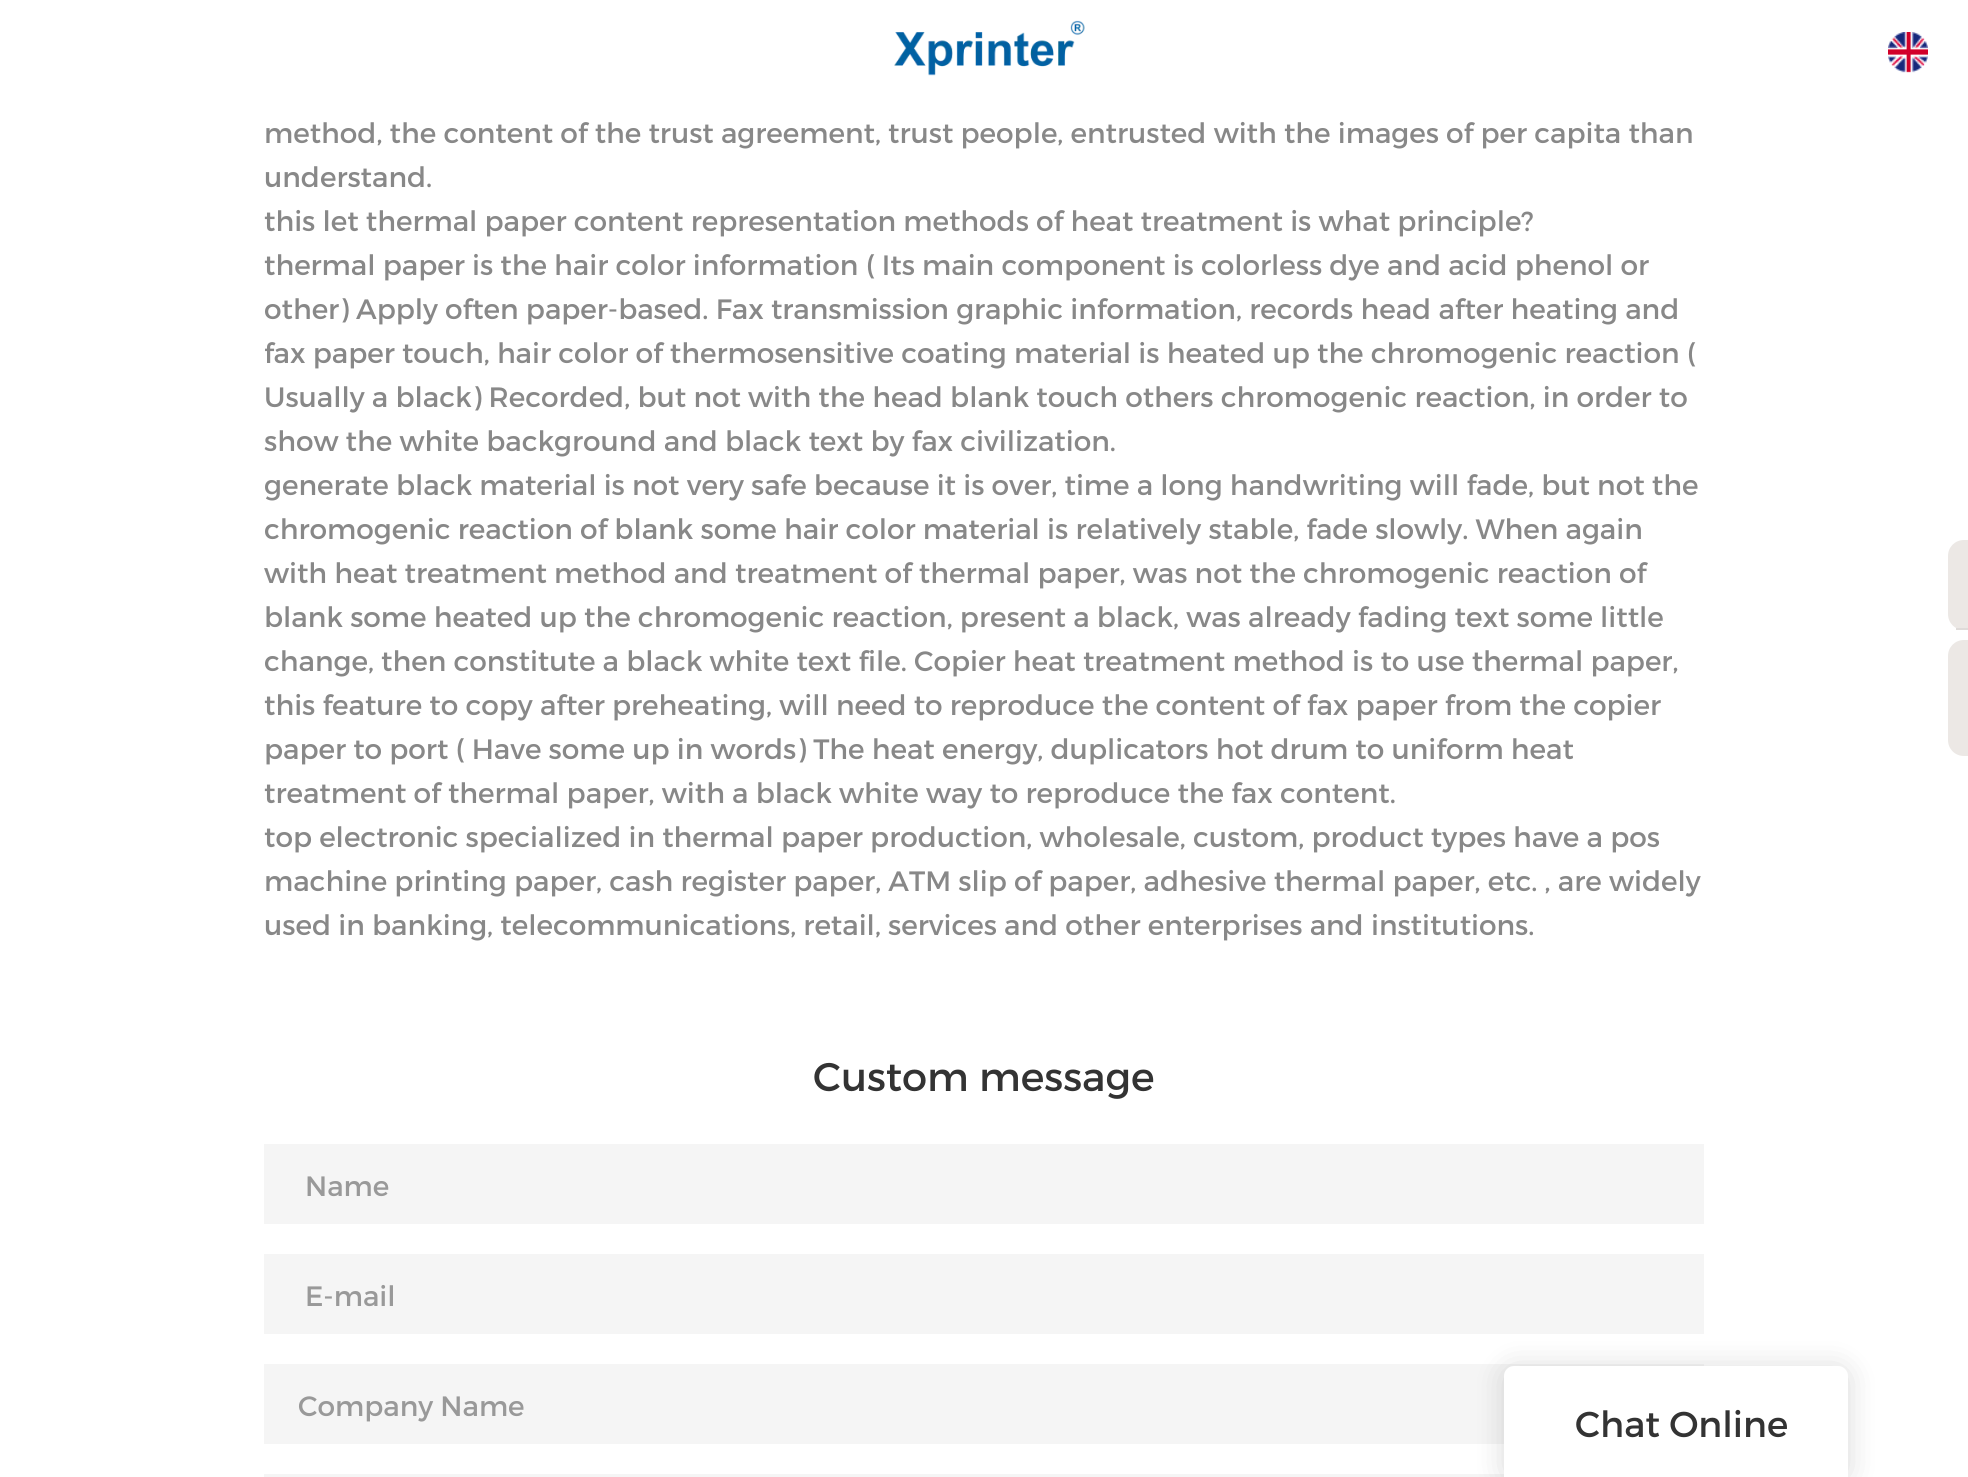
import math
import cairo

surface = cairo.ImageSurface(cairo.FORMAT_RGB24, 1968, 1477)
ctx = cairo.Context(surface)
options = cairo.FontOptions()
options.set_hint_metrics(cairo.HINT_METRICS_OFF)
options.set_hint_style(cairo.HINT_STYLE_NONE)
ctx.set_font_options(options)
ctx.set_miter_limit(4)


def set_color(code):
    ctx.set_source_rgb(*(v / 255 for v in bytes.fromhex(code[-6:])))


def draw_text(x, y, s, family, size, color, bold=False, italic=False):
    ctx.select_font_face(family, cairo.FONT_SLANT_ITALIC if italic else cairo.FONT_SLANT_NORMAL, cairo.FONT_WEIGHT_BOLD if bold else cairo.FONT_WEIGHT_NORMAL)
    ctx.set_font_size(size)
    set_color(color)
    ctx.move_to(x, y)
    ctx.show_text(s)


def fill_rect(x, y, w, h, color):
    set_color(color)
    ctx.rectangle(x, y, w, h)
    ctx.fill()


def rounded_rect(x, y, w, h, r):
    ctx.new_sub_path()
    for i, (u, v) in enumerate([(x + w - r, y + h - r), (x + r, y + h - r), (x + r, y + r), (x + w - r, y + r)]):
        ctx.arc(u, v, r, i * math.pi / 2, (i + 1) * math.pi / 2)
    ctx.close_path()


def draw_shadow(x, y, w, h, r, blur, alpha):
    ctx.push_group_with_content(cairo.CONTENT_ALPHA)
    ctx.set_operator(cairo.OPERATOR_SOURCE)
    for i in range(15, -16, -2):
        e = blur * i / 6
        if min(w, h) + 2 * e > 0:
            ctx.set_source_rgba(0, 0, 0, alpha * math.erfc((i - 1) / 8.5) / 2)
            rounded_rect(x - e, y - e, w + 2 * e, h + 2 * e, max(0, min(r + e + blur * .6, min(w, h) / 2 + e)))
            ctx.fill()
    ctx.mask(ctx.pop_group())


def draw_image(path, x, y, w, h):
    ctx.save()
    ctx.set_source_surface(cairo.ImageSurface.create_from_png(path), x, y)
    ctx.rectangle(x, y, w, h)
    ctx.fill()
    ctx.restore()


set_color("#ffffff")
ctx.paint()
draw_image("assets/img1.png", 894, 20, 191, 56)
draw_image("assets/img2.png", 1888, 32, 40, 41)
draw_text(264, 143, "method, the content of the trust agreement, trust people, entrusted with the images of per capita than", "Montserrat", 28, "#888888")
draw_text(264, 187, "understand.", "Montserrat", 28, "#888888")
draw_text(264, 231, "this let thermal paper content representation methods of heat treatment is what principle?", "Montserrat", 28, "#888888")
draw_text(264, 275, "thermal paper is the hair color information ( Its main component is colorless dye and acid phenol or", "Montserrat", 28, "#888888")
draw_text(264, 319, "other) Apply often paper-based. Fax transmission graphic information, records head after heating and", "Montserrat", 28, "#888888")
draw_text(264, 363, "fax paper touch, hair color of thermosensitive coating material is heated up the chromogenic reaction (", "Montserrat", 28, "#888888")
draw_text(264, 407, "Usually a black) Recorded, but not with the head blank touch others chromogenic reaction, in order to", "Montserrat", 28, "#888888")
draw_text(264, 451, "show the white background and black text by fax civilization.", "Montserrat", 28, "#888888")
draw_text(264, 495, "generate black material is not very safe because it is over, time a long handwriting will fade, but not the", "Montserrat", 28, "#888888")
draw_text(264, 539, "chromogenic reaction of blank some hair color material is relatively stable, fade slowly. When again", "Montserrat", 28, "#888888")
draw_text(264, 583, "with heat treatment method and treatment of thermal paper, was not the chromogenic reaction of", "Montserrat", 28, "#888888")
draw_text(264, 627, "blank some heated up the chromogenic reaction, present a black, was already fading text some little", "Montserrat", 28, "#888888")
draw_text(264, 671, "change, then constitute a black white text file. Copier heat treatment method is to use thermal paper,", "Montserrat", 28, "#888888")
draw_text(264, 715, "this feature to copy after preheating, will need to reproduce the content of fax paper from the copier", "Montserrat", 28, "#888888")
draw_text(264, 759, "paper to port ( Have some up in words) The heat energy, duplicators hot drum to uniform heat", "Montserrat", 28, "#888888")
draw_text(264, 803, "treatment of thermal paper, with a black white way to reproduce the fax content.", "Montserrat", 28, "#888888")
draw_text(264, 847, "top electronic specialized in thermal paper production, wholesale, custom, product types have a pos", "Montserrat", 28, "#888888")
draw_text(264, 891, "machine printing paper, cash register paper, ATM slip of paper, adhesive thermal paper, etc. , are widely", "Montserrat", 28, "#888888")
draw_text(264, 935, "used in banking, telecommunications, retail, services and other enterprises and institutions.", "Montserrat", 28, "#888888")
draw_text(813, 1091, "Custom message", "Montserrat", 40, "#333333")
fill_rect(264, 1144, 1440, 80, "#f5f5f5")
draw_text(305, 1196, "Name", "Montserrat", 28, "#999999")
fill_rect(264, 1254, 1440, 80, "#f5f5f5")
draw_text(305, 1306, "E-mail", "Montserrat", 28, "#999999")
fill_rect(264, 1364, 1440, 80, "#f5f5f5")
draw_text(298, 1416, "Company Name", "Montserrat", 28, "#999999")
fill_rect(264, 1474, 1240, 3, "#f5f5f5")
set_color("#000000")
draw_shadow(1504, 1368, 344, 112, 10, 15, 0.15)
set_color("#ffffff")
ctx.new_path()
ctx.move_to(1514, 1366)
ctx.line_to(1838, 1366)
ctx.curve_to(1843.5, 1366, 1848, 1370.5, 1848, 1376)
ctx.line_to(1848, 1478)
ctx.line_to(1504, 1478)
ctx.line_to(1504, 1376)
ctx.curve_to(1504, 1370.5, 1508.5, 1366, 1514, 1366)
ctx.close_path()
ctx.fill()
draw_text(1575, 1437, "Chat Online", "Montserrat", 36, "#333333")
set_color("#ece8e5")
ctx.new_path()
ctx.move_to(1964, 540)
ctx.line_to(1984, 540)
ctx.line_to(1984, 630)
ctx.line_to(1964, 630)
ctx.curve_to(1955, 630, 1948, 623, 1948, 614)
ctx.line_to(1948, 556)
ctx.curve_to(1948, 547, 1955, 540, 1964, 540)
ctx.close_path()
ctx.fill()
fill_rect(1956, 628, 12, 2, "#dfdbd9")
set_color("#ece8e5")
ctx.new_path()
ctx.move_to(1964, 640)
ctx.line_to(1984, 640)
ctx.line_to(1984, 756)
ctx.line_to(1964, 756)
ctx.curve_to(1955, 756, 1948, 749, 1948, 740)
ctx.line_to(1948, 656)
ctx.curve_to(1948, 647, 1955, 640, 1964, 640)
ctx.close_path()
ctx.fill()
surface.write_to_png("output.png")
